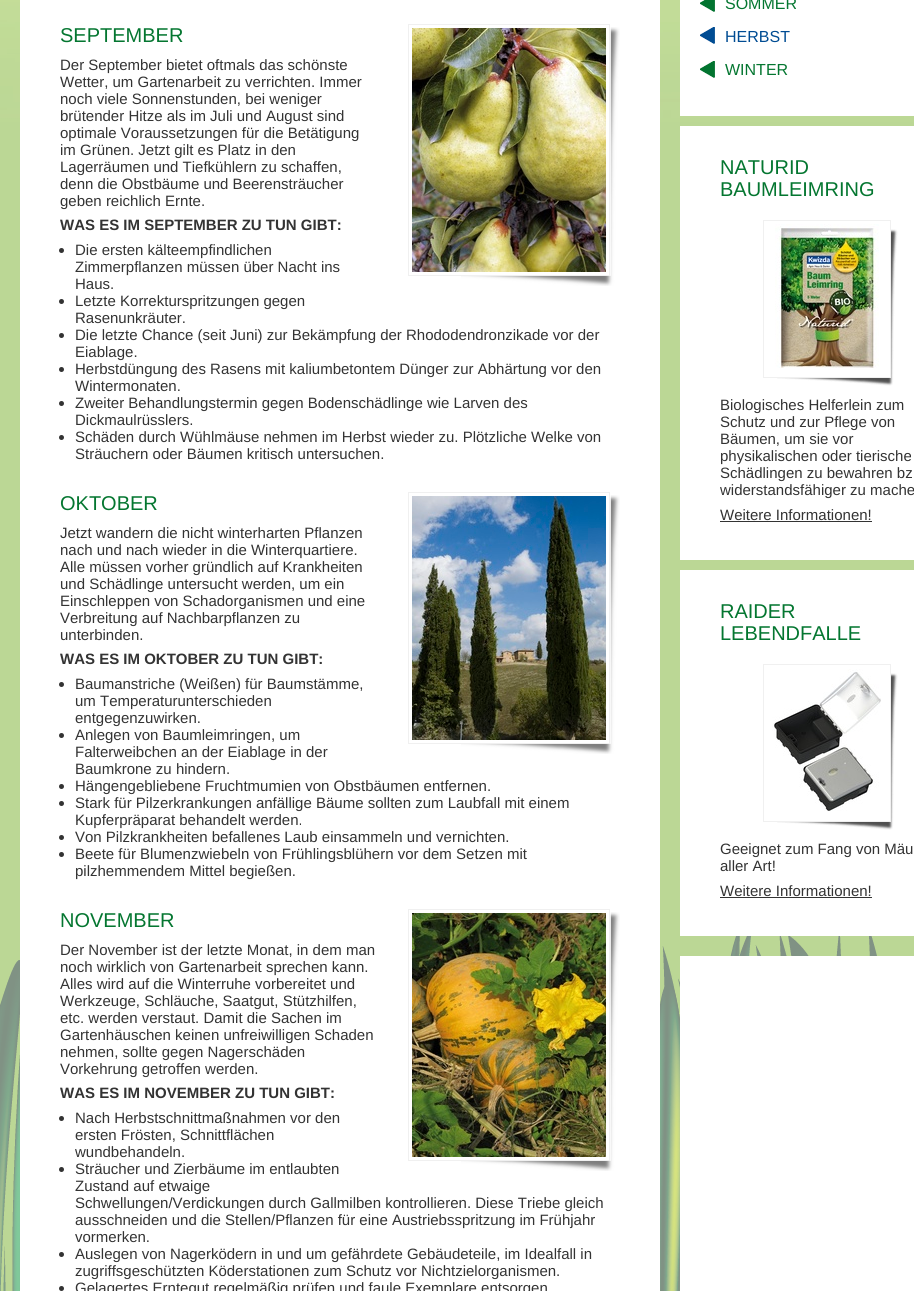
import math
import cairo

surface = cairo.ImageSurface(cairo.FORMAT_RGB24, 914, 1291)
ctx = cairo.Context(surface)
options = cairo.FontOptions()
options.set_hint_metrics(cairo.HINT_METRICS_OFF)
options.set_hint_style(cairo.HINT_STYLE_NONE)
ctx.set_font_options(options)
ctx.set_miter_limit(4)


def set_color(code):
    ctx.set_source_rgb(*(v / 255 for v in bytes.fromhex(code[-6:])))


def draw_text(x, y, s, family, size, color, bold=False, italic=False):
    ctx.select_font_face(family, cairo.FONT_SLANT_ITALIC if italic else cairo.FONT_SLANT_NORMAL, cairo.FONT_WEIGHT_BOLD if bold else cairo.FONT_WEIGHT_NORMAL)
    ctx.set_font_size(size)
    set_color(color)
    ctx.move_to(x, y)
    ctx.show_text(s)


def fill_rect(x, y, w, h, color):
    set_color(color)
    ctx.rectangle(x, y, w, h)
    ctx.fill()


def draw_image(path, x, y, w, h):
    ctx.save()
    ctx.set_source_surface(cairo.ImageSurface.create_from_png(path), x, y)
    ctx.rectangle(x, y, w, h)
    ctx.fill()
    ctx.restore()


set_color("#bbd795")
ctx.paint()
draw_image("assets/img1.png", 0, 0, 914, 122)
draw_image("assets/img12.png", 0, 936, 877, 355)
fill_rect(20, 0, 640, 1291, "#ffffff")
draw_image("assets/img2.png", 461, 27, 159, 259)
ctx.rectangle(408.5, 24.5, 201, 251)
set_color("#f0f0f0")
ctx.set_line_width(1)
ctx.stroke()
draw_image("assets/img3.png", 412, 28, 194, 244)
draw_text(60, 42, "SEPTEMBER", "Liberation Sans", 20, "#047630")
draw_text(60, 70, "Der September bietet oftmals das schönste", "Liberation Sans", 15, "#333333")
draw_text(60, 87, "Wetter, um Gartenarbeit zu verrichten. Immer", "Liberation Sans", 15, "#333333")
draw_text(60, 104, "noch viele Sonnenstunden, bei weniger", "Liberation Sans", 15, "#333333")
draw_text(60, 121, "brütender Hitze als im Juli und August sind", "Liberation Sans", 15, "#333333")
draw_text(60, 138, "optimale Voraussetzungen für die Betätigung", "Liberation Sans", 15, "#333333")
draw_text(60, 155, "im Grünen. Jetzt gilt es Platz in den", "Liberation Sans", 15, "#333333")
draw_text(60, 172, "Lagerräumen und Tiefkühlern zu schaffen,", "Liberation Sans", 15, "#333333")
draw_text(60, 189, "denn die Obstbäume und Beerensträucher", "Liberation Sans", 15, "#333333")
draw_text(60, 206, "geben reichlich Ernte.", "Liberation Sans", 15, "#333333")
draw_text(60, 230, "WAS ES IM SEPTEMBER ZU TUN GIBT:", "Liberation Sans", 15, "#333333", bold=True)
ctx.new_path()
ctx.arc(61.5, 250.5, 2.5, 0, 2 * math.pi)
ctx.fill()
draw_text(75, 255, "Die ersten kälteempfindlichen", "Liberation Sans", 15, "#333333")
draw_text(75, 272, "Zimmerpflanzen müssen über Nacht ins", "Liberation Sans", 15, "#333333")
draw_text(75, 289, "Haus.", "Liberation Sans", 15, "#333333")
ctx.new_path()
ctx.arc(61.5, 301.5, 2.5, 0, 2 * math.pi)
ctx.fill()
draw_text(75, 306, "Letzte Korrekturspritzungen gegen", "Liberation Sans", 15, "#333333")
draw_text(75, 323, "Rasenunkräuter.", "Liberation Sans", 15, "#333333")
ctx.new_path()
ctx.arc(61.5, 335.5, 2.5, 0, 2 * math.pi)
ctx.fill()
draw_text(75, 340, "Die letzte Chance (seit Juni) zur Bekämpfung der Rhododendronzikade vor der", "Liberation Sans", 15, "#333333")
draw_text(75, 357, "Eiablage.", "Liberation Sans", 15, "#333333")
ctx.new_path()
ctx.arc(61.5, 369.5, 2.5, 0, 2 * math.pi)
ctx.fill()
draw_text(75, 374, "Herbstdüngung des Rasens mit kaliumbetontem Dünger zur Abhärtung vor den", "Liberation Sans", 15, "#333333")
draw_text(75, 391, "Wintermonaten.", "Liberation Sans", 15, "#333333")
ctx.new_path()
ctx.arc(61.5, 403.5, 2.5, 0, 2 * math.pi)
ctx.fill()
draw_text(75, 408, "Zweiter Behandlungstermin gegen Bodenschädlinge wie Larven des", "Liberation Sans", 15, "#333333")
draw_text(75, 425, "Dickmaulrüsslers.", "Liberation Sans", 15, "#333333")
ctx.new_path()
ctx.arc(61.5, 437.5, 2.5, 0, 2 * math.pi)
ctx.fill()
draw_text(75, 442, "Schäden durch Wühlmäuse nehmen im Herbst wieder zu. Plötzliche Welke von", "Liberation Sans", 15, "#333333")
draw_text(75, 459, "Sträuchern oder Bäumen kritisch untersuchen.", "Liberation Sans", 15, "#333333")
draw_image("assets/img2.png", 461, 495, 159, 259)
ctx.rectangle(408.5, 492.5, 201, 251)
set_color("#f0f0f0")
ctx.stroke()
draw_image("assets/img4.png", 412, 496, 194, 244)
draw_text(60, 510, "OKTOBER", "Liberation Sans", 20, "#047630")
draw_text(60, 538, "Jetzt wandern die nicht winterharten Pflanzen", "Liberation Sans", 15, "#333333")
draw_text(60, 555, "nach und nach wieder in die Winterquartiere.", "Liberation Sans", 15, "#333333")
draw_text(60, 572, "Alle müssen vorher gründlich auf Krankheiten", "Liberation Sans", 15, "#333333")
draw_text(60, 589, "und Schädlinge untersucht werden, um ein", "Liberation Sans", 15, "#333333")
draw_text(60, 606, "Einschleppen von Schadorganismen und eine", "Liberation Sans", 15, "#333333")
draw_text(60, 623, "Verbreitung auf Nachbarpflanzen zu", "Liberation Sans", 15, "#333333")
draw_text(60, 640, "unterbinden.", "Liberation Sans", 15, "#333333")
draw_text(60, 664, "WAS ES IM OKTOBER ZU TUN GIBT:", "Liberation Sans", 15, "#333333", bold=True)
ctx.new_path()
ctx.arc(61.5, 684.5, 2.5, 0, 2 * math.pi)
ctx.fill()
draw_text(75, 689, "Baumanstriche (Weißen) für Baumstämme,", "Liberation Sans", 15, "#333333")
draw_text(75, 706, "um Temperaturunterschieden", "Liberation Sans", 15, "#333333")
draw_text(75, 723, "entgegenzuwirken.", "Liberation Sans", 15, "#333333")
ctx.new_path()
ctx.arc(61.5, 735.5, 2.5, 0, 2 * math.pi)
ctx.fill()
draw_text(75, 740, "Anlegen von Baumleimringen, um", "Liberation Sans", 15, "#333333")
draw_text(75, 757, "Falterweibchen an der Eiablage in der", "Liberation Sans", 15, "#333333")
draw_text(75, 774, "Baumkrone zu hindern.", "Liberation Sans", 15, "#333333")
ctx.new_path()
ctx.arc(61.5, 786.5, 2.5, 0, 2 * math.pi)
ctx.fill()
draw_text(75, 791, "Hängengebliebene Fruchtmumien von Obstbäumen entfernen.", "Liberation Sans", 15, "#333333")
ctx.new_path()
ctx.arc(61.5, 803.5, 2.5, 0, 2 * math.pi)
ctx.fill()
draw_text(75, 808, "Stark für Pilzerkrankungen anfällige Bäume sollten zum Laubfall mit einem", "Liberation Sans", 15, "#333333")
draw_text(75, 825, "Kupferpräparat behandelt werden.", "Liberation Sans", 15, "#333333")
ctx.new_path()
ctx.arc(61.5, 837.5, 2.5, 0, 2 * math.pi)
ctx.fill()
draw_text(75, 842, "Von Pilzkrankheiten befallenes Laub einsammeln und vernichten.", "Liberation Sans", 15, "#333333")
ctx.new_path()
ctx.arc(61.5, 854.5, 2.5, 0, 2 * math.pi)
ctx.fill()
draw_text(75, 859, "Beete für Blumenzwiebeln von Frühlingsblühern vor dem Setzen mit", "Liberation Sans", 15, "#333333")
draw_text(75, 876, "pilzhemmendem Mittel begießen.", "Liberation Sans", 15, "#333333")
draw_image("assets/img2.png", 461, 912, 159, 259)
ctx.rectangle(408.5, 909.5, 201, 251)
set_color("#f0f0f0")
ctx.stroke()
draw_image("assets/img5.png", 412, 913, 194, 244)
draw_text(60, 927, "NOVEMBER", "Liberation Sans", 20, "#047630")
draw_text(60, 955, "Der November ist der letzte Monat, in dem man", "Liberation Sans", 15, "#333333")
draw_text(60, 972, "noch wirklich von Gartenarbeit sprechen kann.", "Liberation Sans", 15, "#333333")
draw_text(60, 989, "Alles wird auf die Winterruhe vorbereitet und", "Liberation Sans", 15, "#333333")
draw_text(60, 1006, "Werkzeuge, Schläuche, Saatgut, Stützhilfen,", "Liberation Sans", 15, "#333333")
draw_text(60, 1023, "etc. werden verstaut. Damit die Sachen im", "Liberation Sans", 15, "#333333")
draw_text(60, 1040, "Gartenhäuschen keinen unfreiwilligen Schaden", "Liberation Sans", 15, "#333333")
draw_text(60, 1057, "nehmen, sollte gegen Nagerschäden", "Liberation Sans", 15, "#333333")
draw_text(60, 1074, "Vorkehrung getroffen werden.", "Liberation Sans", 15, "#333333")
draw_text(60, 1098, "WAS ES IM NOVEMBER ZU TUN GIBT:", "Liberation Sans", 15, "#333333", bold=True)
ctx.new_path()
ctx.arc(61.5, 1118.5, 2.5, 0, 2 * math.pi)
ctx.fill()
draw_text(75, 1123, "Nach Herbstschnittmaßnahmen vor den", "Liberation Sans", 15, "#333333")
draw_text(75, 1140, "ersten Frösten, Schnittflächen", "Liberation Sans", 15, "#333333")
draw_text(75, 1157, "wundbehandeln.", "Liberation Sans", 15, "#333333")
ctx.new_path()
ctx.arc(61.5, 1169.5, 2.5, 0, 2 * math.pi)
ctx.fill()
draw_text(75, 1174, "Sträucher und Zierbäume im entlaubten", "Liberation Sans", 15, "#333333")
draw_text(75, 1191, "Zustand auf etwaige", "Liberation Sans", 15, "#333333")
draw_text(75, 1208, "Schwellungen/Verdickungen durch Gallmilben kontrollieren. Diese Triebe gleich", "Liberation Sans", 15, "#333333")
draw_text(75, 1225, "ausschneiden und die Stellen/Pflanzen für eine Austriebsspritzung im Frühjahr", "Liberation Sans", 15, "#333333")
draw_text(75, 1242, "vormerken.", "Liberation Sans", 15, "#333333")
ctx.new_path()
ctx.arc(61.5, 1254.5, 2.5, 0, 2 * math.pi)
ctx.fill()
draw_text(75, 1259, "Auslegen von Nagerködern in und um gefährdete Gebäudeteile, im Idealfall in", "Liberation Sans", 15, "#333333")
draw_text(75, 1276, "zugriffsgeschützten Köderstationen zum Schutz vor Nichtzielorganismen.", "Liberation Sans", 15, "#333333")
ctx.new_path()
ctx.arc(61.5, 1288.5, 2.5, 0, 2 * math.pi)
ctx.fill()
draw_text(75, 1293, "Gelagertes Erntegut regelmäßig prüfen und faule Exemplare entsorgen", "Liberation Sans", 15, "#333333")
fill_rect(680, 0, 234, 116, "#ffffff")
draw_image("assets/img6.png", 700, 0, 15, 12)
draw_text(725, 9, "SOMMER", "Liberation Sans", 16, "#047630")
draw_image("assets/img7.png", 700, 27, 15, 17)
draw_text(725, 42, "HERBST", "Liberation Sans", 16, "#004c93")
draw_image("assets/img8.png", 700, 61, 15, 17)
draw_text(725, 75, "WINTER", "Liberation Sans", 16, "#047630")
fill_rect(680, 126, 234, 434, "#ffffff")
draw_text(720, 174, "NATURID", "Liberation Sans", 20, "#047630")
draw_text(720, 196, "BAUMLEIMRING", "Liberation Sans", 20, "#047630")
draw_image("assets/img9.png", 777, 229, 121, 157)
fill_rect(777, 375, 113, 2, "#ffffff")
ctx.rectangle(763.5, 220.5, 127, 157)
set_color("#f0f0f0")
ctx.stroke()
draw_image("assets/img10.png", 775, 224, 104, 144)
draw_text(720, 410, "Biologisches Helferlein zum", "Liberation Sans", 15, "#333333")
draw_text(720, 427, "Schutz und zur Pflege von", "Liberation Sans", 15, "#333333")
draw_text(720, 444, "Bäumen, um sie vor", "Liberation Sans", 15, "#333333")
draw_text(720, 461, "physikalischen oder tierische", "Liberation Sans", 15, "#333333")
draw_text(720, 478, "Schädlingen zu bewahren bz", "Liberation Sans", 15, "#333333")
draw_text(720, 495, "widerstandsfähiger zu mache", "Liberation Sans", 15, "#333333")
draw_text(720, 520, "Weitere Informationen!", "Liberation Sans", 15, "#333333")
fill_rect(720, 521, 152, 1, "#333333")
fill_rect(680, 570, 234, 366, "#ffffff")
draw_text(720, 618, "RAIDER", "Liberation Sans", 20, "#047630")
draw_text(720, 640, "LEBENDFALLE", "Liberation Sans", 20, "#047630")
draw_image("assets/img9.png", 777, 673, 121, 157)
fill_rect(777, 819, 113, 2, "#ffffff")
ctx.rectangle(763.5, 664.5, 127, 157)
set_color("#f0f0f0")
ctx.stroke()
draw_image("assets/img11.png", 772, 669, 109, 142)
draw_text(720, 854, "Geeignet zum Fang von Mäu", "Liberation Sans", 15, "#333333")
draw_text(720, 871, "aller Art!", "Liberation Sans", 15, "#333333")
draw_text(720, 896, "Weitere Informationen!", "Liberation Sans", 15, "#333333")
fill_rect(720, 897, 152, 1, "#333333")
fill_rect(680, 956, 234, 335, "#ffffff")
surface.write_to_png("output.png")
